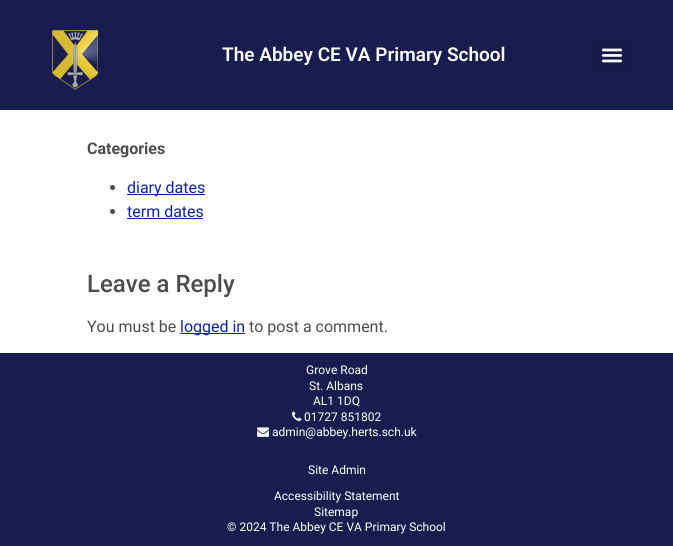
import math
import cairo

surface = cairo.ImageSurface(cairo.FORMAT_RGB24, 673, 546)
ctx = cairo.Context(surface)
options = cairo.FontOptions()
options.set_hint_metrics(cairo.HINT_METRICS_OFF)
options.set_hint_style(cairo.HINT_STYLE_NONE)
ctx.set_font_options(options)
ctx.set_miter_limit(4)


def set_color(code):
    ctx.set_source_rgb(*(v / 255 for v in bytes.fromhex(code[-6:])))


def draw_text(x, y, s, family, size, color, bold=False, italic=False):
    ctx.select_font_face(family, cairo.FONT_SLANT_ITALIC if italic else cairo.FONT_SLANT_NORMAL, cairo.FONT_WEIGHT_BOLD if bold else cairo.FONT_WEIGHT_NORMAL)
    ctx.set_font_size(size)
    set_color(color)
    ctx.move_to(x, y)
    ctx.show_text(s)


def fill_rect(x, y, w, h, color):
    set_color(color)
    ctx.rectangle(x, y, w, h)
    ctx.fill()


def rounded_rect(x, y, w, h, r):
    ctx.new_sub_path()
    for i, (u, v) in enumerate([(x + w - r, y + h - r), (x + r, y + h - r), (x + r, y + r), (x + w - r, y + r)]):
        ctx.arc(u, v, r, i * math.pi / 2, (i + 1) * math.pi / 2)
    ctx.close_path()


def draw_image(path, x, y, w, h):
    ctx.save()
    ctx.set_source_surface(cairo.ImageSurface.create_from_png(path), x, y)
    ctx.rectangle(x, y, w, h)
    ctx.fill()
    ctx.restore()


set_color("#ffffff")
ctx.paint()
fill_rect(0, 0, 673, 110, "#191c4e")
draw_image("assets/img1.png", 52, 30, 46, 60)
draw_text(222, 61, "The Abbey CE VA Primary School", "Roboto SemiBold", 19, "#ffffff")
set_color("#181b4a")
rounded_rect(595, 39, 33, 33, 3)
ctx.fill()
draw_image("assets/img2.png", 601, 48, 22, 15)
draw_text(87, 154, "Categories", "Roboto", 16, "#4c4c4c", bold=True)
ctx.new_path()
ctx.arc(112.5, 187.5, 2.5, 0, 2 * math.pi)
ctx.fill()
fill_rect(127, 194, 78, 1, "#0b23a6")
draw_text(127, 193, "diary dates", "Roboto", 16, "#0b23a6")
set_color("#4c4c4c")
ctx.new_path()
ctx.arc(112.5, 211.5, 2.5, 0, 2 * math.pi)
ctx.fill()
draw_text(127, 217, "term dates", "Roboto", 16, "#0b23a6")
fill_rect(127, 218, 76, 1, "#0b23a6")
draw_text(87, 292, "Leave a Reply", "Roboto Medium", 24, "#4c4c4c")
draw_text(87, 332, "You must be", "Roboto", 16, "#4c4c4c")
fill_rect(180, 333, 65, 1, "#0b23a6")
draw_text(180, 332, "logged in", "Roboto", 16, "#0b23a6")
draw_text(249, 332, "to post a comment.", "Roboto", 16, "#4c4c4c")
fill_rect(0, 353, 673, 193, "#191c4e")
draw_text(306, 374, "Grove Road", "Roboto", 12, "#ffffff")
draw_text(309, 390, "St. Albans", "Roboto", 12, "#ffffff")
draw_text(313, 405, "AL1 1DQ", "Roboto", 12, "#ffffff")
draw_image("assets/img3.png", 292, 411, 10, 10)
draw_text(304, 421, "01727 851802", "Roboto", 12, "#ffffff")
draw_image("assets/img4.png", 257, 427, 12, 10)
draw_text(272, 436, "admin@abbey.herts.sch.uk", "Roboto", 12, "#ffffff")
draw_text(308, 474, "Site Admin", "Roboto", 12, "#ffffff")
draw_text(274, 500, "Accessibility Statement", "Roboto", 12, "#ffffff")
draw_text(314, 516, "Sitemap", "Roboto", 12, "#ffffff")
draw_text(227, 531, "© 2024 The Abbey CE VA Primary School", "Roboto", 12, "#ffffff")
surface.write_to_png("output.png")
